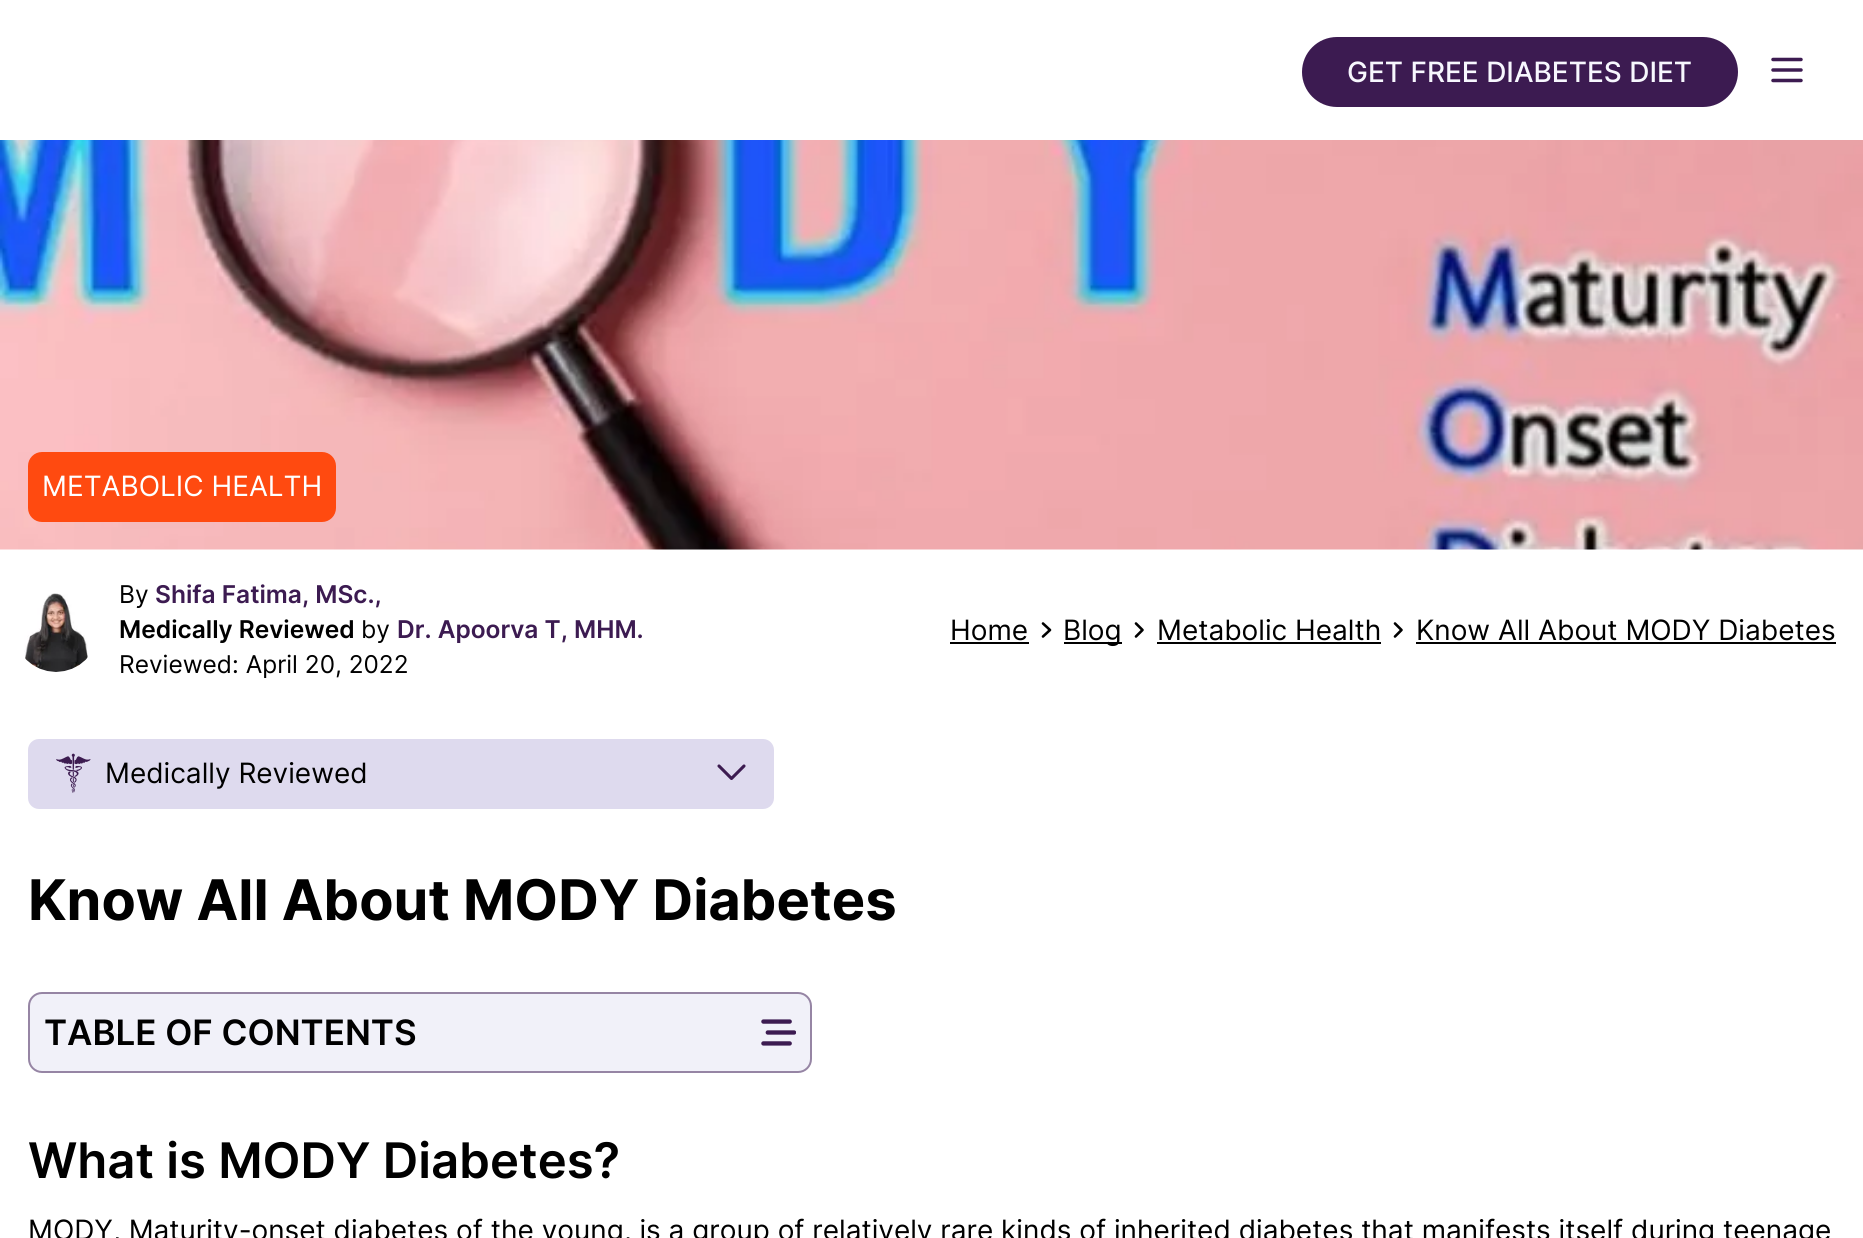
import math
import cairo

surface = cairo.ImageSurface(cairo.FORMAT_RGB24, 1863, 1238)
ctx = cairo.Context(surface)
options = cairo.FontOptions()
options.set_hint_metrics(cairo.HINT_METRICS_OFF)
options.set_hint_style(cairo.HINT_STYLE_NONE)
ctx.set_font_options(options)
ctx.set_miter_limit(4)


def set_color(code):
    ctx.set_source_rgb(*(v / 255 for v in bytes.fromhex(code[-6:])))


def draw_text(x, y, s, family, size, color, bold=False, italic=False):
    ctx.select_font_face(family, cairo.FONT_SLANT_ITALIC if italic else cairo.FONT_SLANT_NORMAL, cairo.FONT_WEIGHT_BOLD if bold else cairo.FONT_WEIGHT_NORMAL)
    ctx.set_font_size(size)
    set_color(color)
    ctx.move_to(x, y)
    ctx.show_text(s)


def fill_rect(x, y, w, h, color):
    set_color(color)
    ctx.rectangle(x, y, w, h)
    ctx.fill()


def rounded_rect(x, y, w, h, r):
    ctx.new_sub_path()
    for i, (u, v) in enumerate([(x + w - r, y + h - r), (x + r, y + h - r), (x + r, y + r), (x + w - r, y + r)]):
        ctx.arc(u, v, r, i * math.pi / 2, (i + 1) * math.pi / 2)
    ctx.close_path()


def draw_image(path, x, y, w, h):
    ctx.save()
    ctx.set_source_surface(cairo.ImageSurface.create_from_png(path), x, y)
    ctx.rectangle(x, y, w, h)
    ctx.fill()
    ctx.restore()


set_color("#ffffff")
ctx.paint()
set_color("#3c1b51")
rounded_rect(1304, 39, 432, 66, 33)
ctx.fill_preserve()
ctx.set_line_width(4)
ctx.stroke()
draw_text(1347, 82, "GET FREE DIABETES DIET", "Inter Medium", 28, "#f7f7fe")
ctx.new_path()
ctx.move_to(1773, 59.5)
ctx.line_to(1801, 59.5)
ctx.move_to(1773, 70)
ctx.line_to(1801, 70)
ctx.move_to(1773, 80.5)
ctx.line_to(1801, 80.5)
set_color("#3c1b51")
ctx.set_line_width(3.5)
ctx.set_line_cap(cairo.LINE_CAP_ROUND)
ctx.set_line_join(cairo.LINE_JOIN_ROUND)
ctx.stroke()
draw_image("assets/img1.png", 0, 140, 1863, 410)
set_color("#ff4a10")
rounded_rect(28, 452, 308, 70, 14)
ctx.fill()
draw_text(42, 496, "METABOLIC HEALTH", "Inter", 28, "#ffffff")
draw_image("assets/img2.png", 24, 593, 64, 79)
draw_text(119, 603, "By", "Inter", 24.5, "#000000")
draw_text(155, 603, "Shifa Fatima, MSc.,", "Inter SemiBold", 24.5, "#3c1b51")
draw_text(119, 638, "Medically Reviewed", "Inter SemiBold", 24.5, "#000000")
draw_text(361, 638, "by", "Inter", 24.5, "#000000")
draw_text(397, 638, "Dr. Apoorva T, MHM.", "Inter SemiBold", 24.5, "#3c1b51")
draw_text(119, 673, "Reviewed: April 20, 2022", "Inter", 24.5, "#000000")
draw_text(950, 640, "Home", "Inter", 28, "#000000")
fill_rect(950, 642, 79, 2, "#000000")
ctx.new_path()
ctx.move_to(1043, 623.5)
ctx.line_to(1050, 630)
ctx.line_to(1043, 636.5)
ctx.set_line_width(2.6)
ctx.stroke()
fill_rect(1064, 642, 58, 2, "#000000")
draw_text(1063, 640, "Blog", "Inter", 28, "#000000")
ctx.new_path()
ctx.move_to(1136, 623.5)
ctx.line_to(1142.5, 630)
ctx.line_to(1136, 636.5)
ctx.stroke()
draw_text(1157, 640, "Metabolic Health", "Inter", 28, "#000000")
fill_rect(1157, 642, 224, 2, "#000000")
ctx.new_path()
ctx.move_to(1395, 623.5)
ctx.line_to(1401.5, 630)
ctx.line_to(1395, 636.5)
ctx.stroke()
draw_text(1416, 640, "Know All About MODY Diabetes", "Inter", 28, "#000000")
fill_rect(1416, 642, 420, 2, "#000000")
set_color("#dedaee")
rounded_rect(28, 739, 746, 70, 11)
ctx.fill()
draw_image("assets/img3.png", 56, 753, 35, 40)
draw_text(105, 783, "Medically Reviewed", "Inter", 28, "#000000")
ctx.new_path()
ctx.move_to(719, 766)
ctx.line_to(731.5, 778.5)
ctx.line_to(744, 766)
set_color("#3c1b50")
ctx.set_line_width(3.1)
ctx.stroke()
draw_text(28, 920, "Know All About MODY Diabetes", "Inter", 56, "#000000", bold=True)
set_color("#f1f1f9")
rounded_rect(28, 992, 784, 81, 14)
ctx.fill()
rounded_rect(29, 993, 782, 79, 13)
ctx.set_source_rgba(0.235, 0.106, 0.318, 0.5)
ctx.set_line_width(2)
ctx.set_line_cap(cairo.LINE_CAP_BUTT)
ctx.set_line_join(cairo.LINE_JOIN_MITER)
ctx.stroke()
draw_text(44, 1045, "TABLE OF CONTENTS", "Inter SemiBold", 35, "#000000")
draw_image("assets/img4.png", 761, 1019, 35, 27)
draw_text(28, 1178, "What is MODY Diabetes?", "Inter SemiBold", 49, "#000000")
draw_text(28, 1240, "MODY, Maturity-onset diabetes of the young, is a group of relatively rare kinds of inherited diabetes that manifests itself during teenage", "Inter", 28, "#000000")
surface.write_to_png("output.png")
